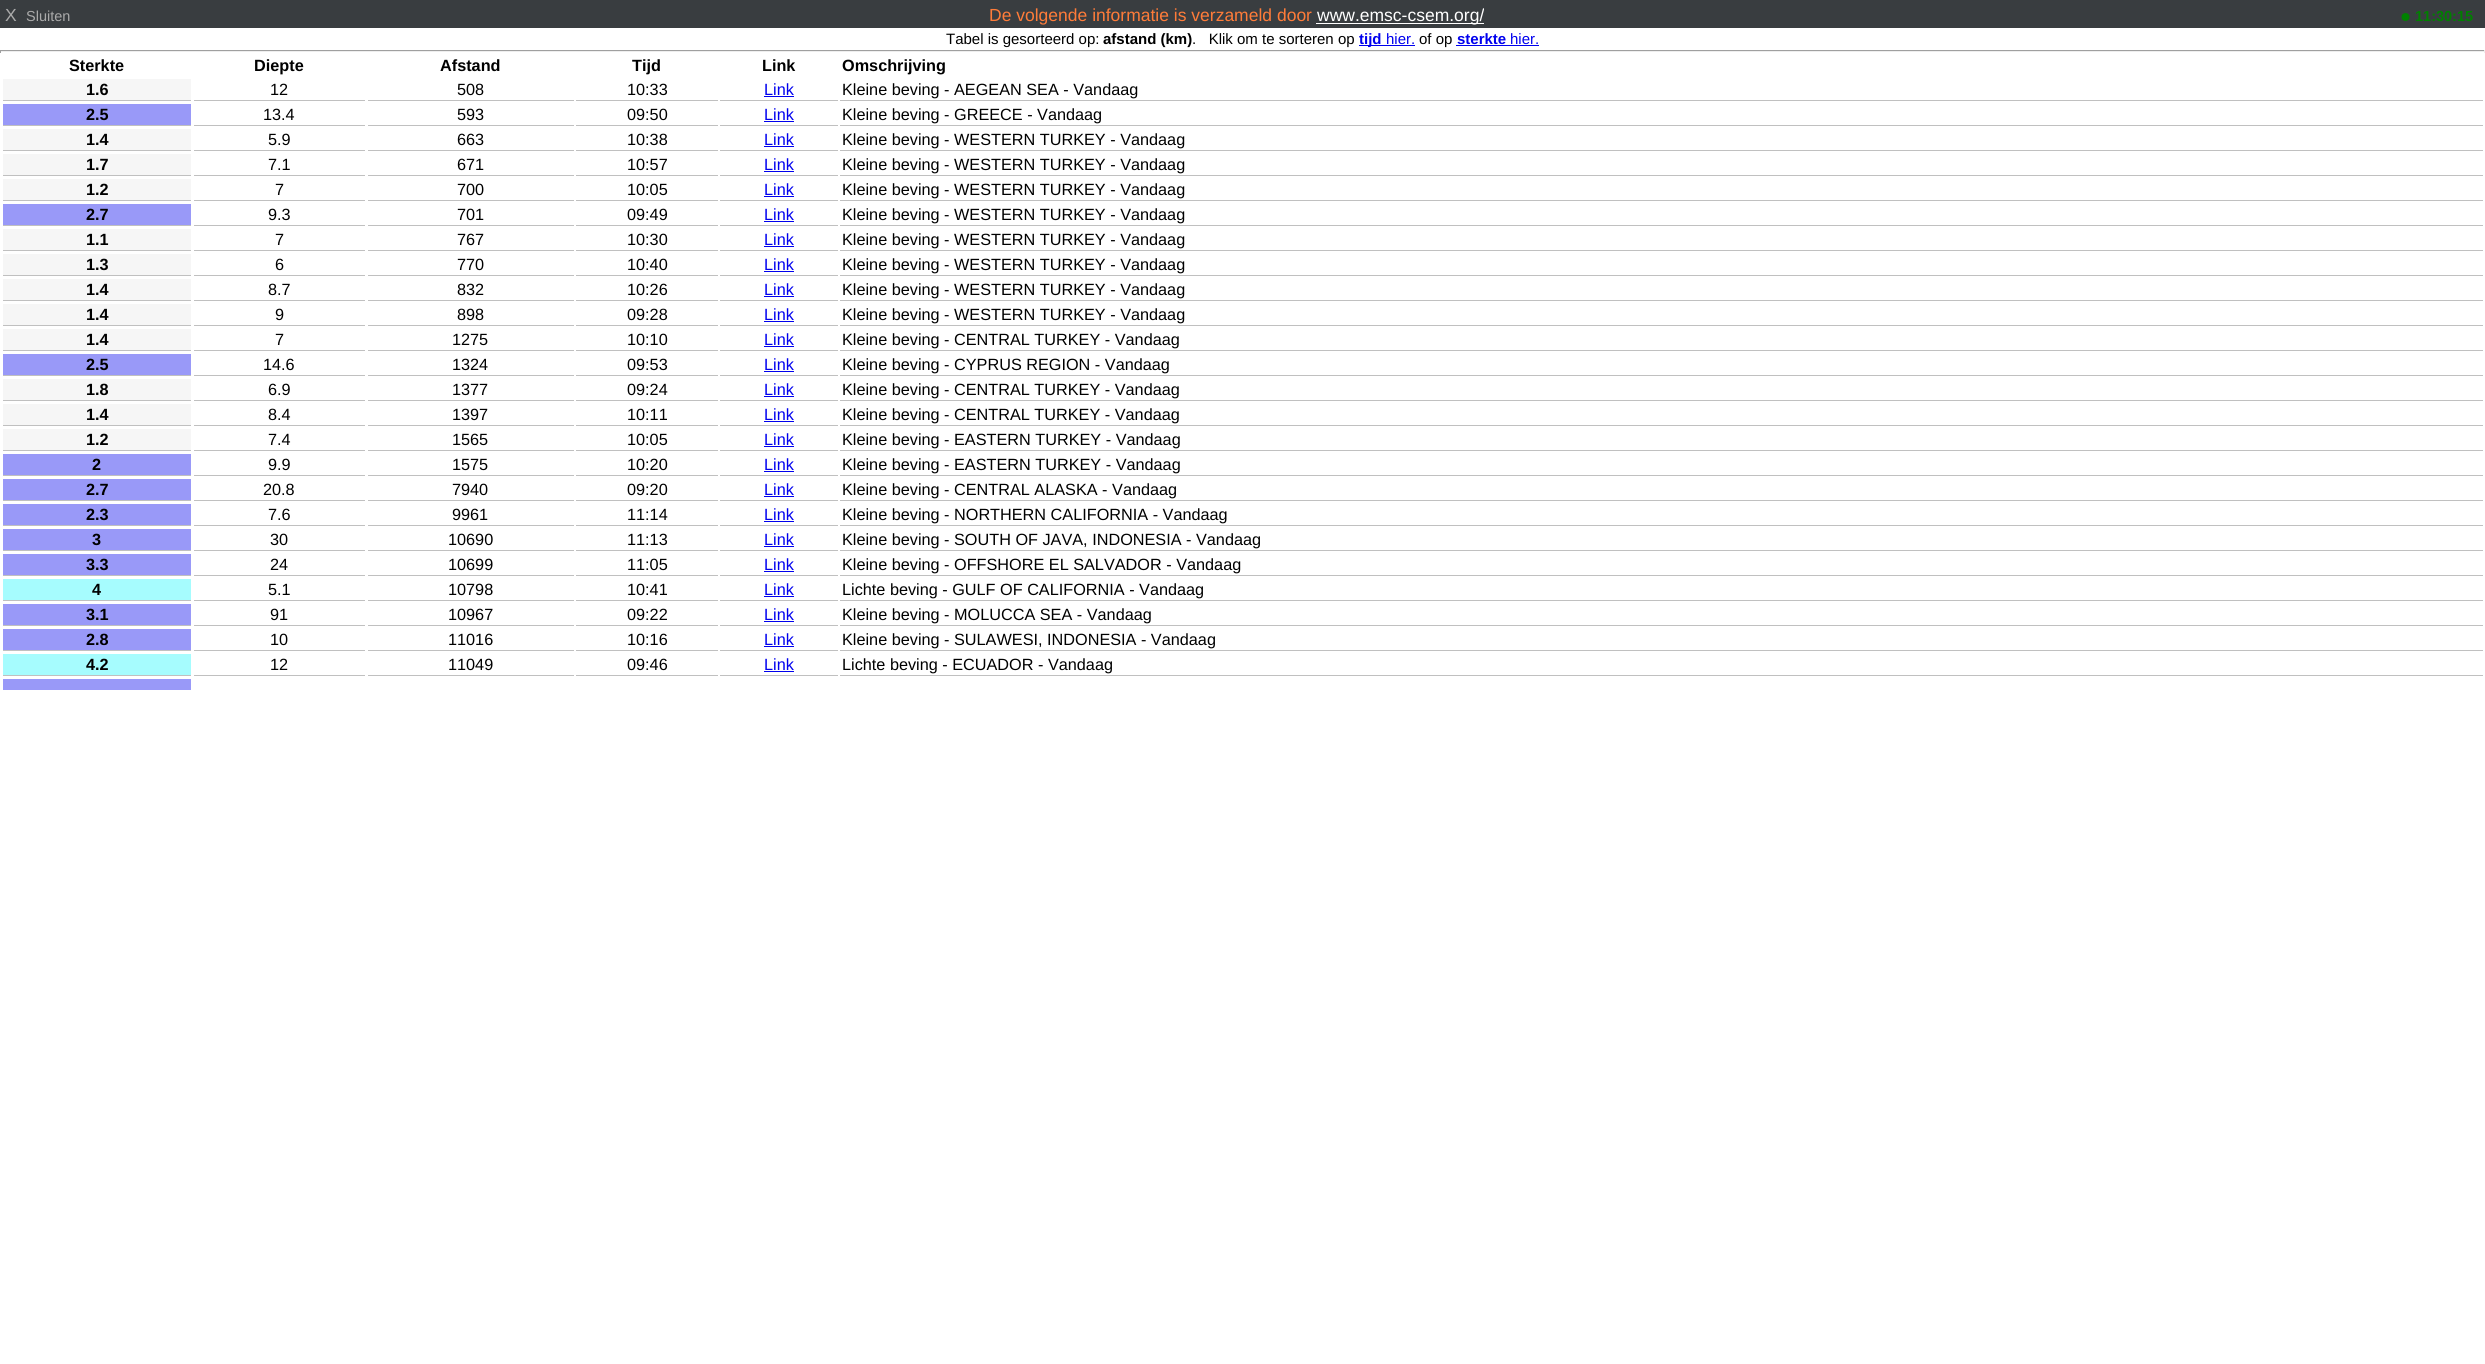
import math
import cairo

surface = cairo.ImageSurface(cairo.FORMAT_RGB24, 2485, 1364)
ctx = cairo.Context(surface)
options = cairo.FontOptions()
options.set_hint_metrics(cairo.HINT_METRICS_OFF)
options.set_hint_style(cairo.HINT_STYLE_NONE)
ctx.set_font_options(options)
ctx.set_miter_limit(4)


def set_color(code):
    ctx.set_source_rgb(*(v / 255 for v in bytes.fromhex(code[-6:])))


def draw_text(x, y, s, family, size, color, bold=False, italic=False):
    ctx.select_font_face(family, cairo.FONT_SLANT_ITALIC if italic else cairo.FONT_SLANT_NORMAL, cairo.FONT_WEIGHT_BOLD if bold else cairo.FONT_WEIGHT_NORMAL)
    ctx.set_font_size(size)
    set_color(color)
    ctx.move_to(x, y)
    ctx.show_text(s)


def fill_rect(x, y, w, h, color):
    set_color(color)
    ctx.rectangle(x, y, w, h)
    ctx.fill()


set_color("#ffffff")
ctx.paint()
fill_rect(0, 0, 2485, 28, "#393d40")
draw_text(5, 21, "X", "Liberation Sans", 17.5, "#aaaaaa")
draw_text(26, 21, "Sluiten", "Liberation Sans", 14.5, "#aaaaaa")
draw_text(989, 21, "De volgende informatie is verzameld door", "Liberation Sans", 17.5, "#ff7c39")
fill_rect(1316, 23, 168, 1, "#ffffff")
draw_text(1317, 21, "www.emsc-csem.org/", "Liberation Sans", 17.5, "#ffffff")
draw_text(2415, 21, "11:30:15", "Liberation Sans", 14.5, "#008000", bold=True)
ctx.new_path()
ctx.arc(2405.5, 17, 4, 0, 2 * math.pi)
ctx.fill()
draw_text(946, 44, "Tabel is gesorteerd op:", "Liberation Sans", 15, "#000000")
draw_text(1103, 44, "afstand (km)", "Liberation Sans", 15, "#000000", bold=True)
draw_text(1192, 44, ".   Klik om te sorteren op", "Liberation Sans", 15, "#000000")
fill_rect(1359, 45, 56, 1, "#0000ee")
draw_text(1359, 44, "tijd", "Liberation Sans", 15, "#0000ee", bold=True)
draw_text(1386, 44, "hier.", "Liberation Sans", 15, "#0000ee")
draw_text(1419, 44, "of op", "Liberation Sans", 15, "#000000")
draw_text(1457, 44, "sterkte", "Liberation Sans", 15, "#0000ee", bold=True)
fill_rect(1456, 45, 83, 1, "#0000ee")
draw_text(1510, 44, "hier.", "Liberation Sans", 15, "#0000ee")
fill_rect(0, 50, 2485, 1, "#9f9f9f")
fill_rect(2484, 50, 1, 3, "#eeeeee")
fill_rect(0, 51, 2485, 1, "#eeeeee")
fill_rect(0, 50, 1, 3, "#9f9f9f")
draw_text(69, 71, "Sterkte", "Liberation Sans", 16.25, "#000000", bold=True)
draw_text(254, 71, "Diepte", "Liberation Sans", 16.25, "#000000", bold=True)
draw_text(440, 71, "Afstand", "Liberation Sans", 16.25, "#000000", bold=True)
draw_text(632, 71, "Tijd", "Liberation Sans", 16.25, "#000000", bold=True)
draw_text(762, 71, "Link", "Liberation Sans", 16.25, "#000000", bold=True)
draw_text(842, 71, "Omschrijving", "Liberation Sans", 16.25, "#000000", bold=True)
fill_rect(3, 79, 188, 21, "#f6f6f6")
fill_rect(3, 100, 188, 1, "#c0c0c0")
draw_text(86, 95, "1.6", "Liberation Sans", 16.25, "#000000", bold=True)
fill_rect(194, 100, 171, 1, "#c0c0c0")
draw_text(270, 95, "12", "Liberation Sans", 16.25, "#000000")
fill_rect(368, 100, 206, 1, "#c0c0c0")
draw_text(457, 95, "508", "Liberation Sans", 16.25, "#000000")
fill_rect(576, 100, 142, 1, "#c0c0c0")
draw_text(627, 95, "10:33", "Liberation Sans", 16.25, "#000000")
fill_rect(720, 100, 118, 1, "#c0c0c0")
draw_text(764, 95, "Link", "Liberation Sans", 16.25, "#0000ee")
fill_rect(764, 96, 30, 1, "#0000ee")
fill_rect(840, 100, 1643, 1, "#c0c0c0")
draw_text(842, 95, "Kleine beving - AEGEAN SEA - Vandaag", "Liberation Sans", 16.25, "#000000")
fill_rect(3, 104, 188, 21, "#9999f8")
fill_rect(3, 125, 188, 1, "#c0c0c0")
draw_text(86, 120, "2.5", "Liberation Sans", 16.25, "#000000", bold=True)
fill_rect(194, 125, 171, 1, "#c0c0c0")
draw_text(263, 120, "13.4", "Liberation Sans", 16.25, "#000000")
fill_rect(368, 125, 206, 1, "#c0c0c0")
draw_text(457, 120, "593", "Liberation Sans", 16.25, "#000000")
fill_rect(576, 125, 142, 1, "#c0c0c0")
draw_text(627, 120, "09:50", "Liberation Sans", 16.25, "#000000")
fill_rect(720, 125, 118, 1, "#c0c0c0")
draw_text(764, 120, "Link", "Liberation Sans", 16.25, "#0000ee")
fill_rect(764, 121, 30, 1, "#0000ee")
fill_rect(840, 125, 1643, 1, "#c0c0c0")
draw_text(842, 120, "Kleine beving - GREECE - Vandaag", "Liberation Sans", 16.25, "#000000")
fill_rect(3, 129, 188, 21, "#f6f6f6")
fill_rect(3, 150, 188, 1, "#c0c0c0")
draw_text(86, 145, "1.4", "Liberation Sans", 16.25, "#000000", bold=True)
fill_rect(194, 150, 171, 1, "#c0c0c0")
draw_text(268, 145, "5.9", "Liberation Sans", 16.25, "#000000")
fill_rect(368, 150, 206, 1, "#c0c0c0")
draw_text(457, 145, "663", "Liberation Sans", 16.25, "#000000")
fill_rect(576, 150, 142, 1, "#c0c0c0")
draw_text(627, 145, "10:38", "Liberation Sans", 16.25, "#000000")
fill_rect(720, 150, 118, 1, "#c0c0c0")
draw_text(764, 145, "Link", "Liberation Sans", 16.25, "#0000ee")
fill_rect(764, 146, 30, 1, "#0000ee")
fill_rect(840, 150, 1643, 1, "#c0c0c0")
draw_text(842, 145, "Kleine beving - WESTERN TURKEY - Vandaag", "Liberation Sans", 16.25, "#000000")
fill_rect(3, 154, 188, 21, "#f6f6f6")
fill_rect(3, 175, 188, 1, "#c0c0c0")
draw_text(86, 170, "1.7", "Liberation Sans", 16.25, "#000000", bold=True)
fill_rect(194, 175, 171, 1, "#c0c0c0")
draw_text(268, 170, "7.1", "Liberation Sans", 16.25, "#000000")
fill_rect(368, 175, 206, 1, "#c0c0c0")
draw_text(457, 170, "671", "Liberation Sans", 16.25, "#000000")
fill_rect(576, 175, 142, 1, "#c0c0c0")
draw_text(627, 170, "10:57", "Liberation Sans", 16.25, "#000000")
fill_rect(720, 175, 118, 1, "#c0c0c0")
draw_text(764, 170, "Link", "Liberation Sans", 16.25, "#0000ee")
fill_rect(764, 171, 30, 1, "#0000ee")
fill_rect(840, 175, 1643, 1, "#c0c0c0")
draw_text(842, 170, "Kleine beving - WESTERN TURKEY - Vandaag", "Liberation Sans", 16.25, "#000000")
fill_rect(3, 179, 188, 21, "#f6f6f6")
fill_rect(3, 200, 188, 1, "#c0c0c0")
draw_text(86, 195, "1.2", "Liberation Sans", 16.25, "#000000", bold=True)
fill_rect(194, 200, 171, 1, "#c0c0c0")
draw_text(275, 195, "7", "Liberation Sans", 16.25, "#000000")
fill_rect(368, 200, 206, 1, "#c0c0c0")
draw_text(457, 195, "700", "Liberation Sans", 16.25, "#000000")
fill_rect(576, 200, 142, 1, "#c0c0c0")
draw_text(627, 195, "10:05", "Liberation Sans", 16.25, "#000000")
fill_rect(720, 200, 118, 1, "#c0c0c0")
draw_text(764, 195, "Link", "Liberation Sans", 16.25, "#0000ee")
fill_rect(764, 196, 30, 1, "#0000ee")
fill_rect(840, 200, 1643, 1, "#c0c0c0")
draw_text(842, 195, "Kleine beving - WESTERN TURKEY - Vandaag", "Liberation Sans", 16.25, "#000000")
fill_rect(3, 204, 188, 21, "#9999f8")
fill_rect(3, 225, 188, 1, "#c0c0c0")
draw_text(86, 220, "2.7", "Liberation Sans", 16.25, "#000000", bold=True)
fill_rect(194, 225, 171, 1, "#c0c0c0")
draw_text(268, 220, "9.3", "Liberation Sans", 16.25, "#000000")
fill_rect(368, 225, 206, 1, "#c0c0c0")
draw_text(457, 220, "701", "Liberation Sans", 16.25, "#000000")
fill_rect(576, 225, 142, 1, "#c0c0c0")
draw_text(627, 220, "09:49", "Liberation Sans", 16.25, "#000000")
fill_rect(720, 225, 118, 1, "#c0c0c0")
draw_text(764, 220, "Link", "Liberation Sans", 16.25, "#0000ee")
fill_rect(764, 221, 30, 1, "#0000ee")
fill_rect(840, 225, 1643, 1, "#c0c0c0")
draw_text(842, 220, "Kleine beving - WESTERN TURKEY - Vandaag", "Liberation Sans", 16.25, "#000000")
fill_rect(3, 229, 188, 21, "#f6f6f6")
fill_rect(3, 250, 188, 1, "#c0c0c0")
draw_text(86, 245, "1.1", "Liberation Sans", 16.25, "#000000", bold=True)
fill_rect(194, 250, 171, 1, "#c0c0c0")
draw_text(275, 245, "7", "Liberation Sans", 16.25, "#000000")
fill_rect(368, 250, 206, 1, "#c0c0c0")
draw_text(457, 245, "767", "Liberation Sans", 16.25, "#000000")
fill_rect(576, 250, 142, 1, "#c0c0c0")
draw_text(627, 245, "10:30", "Liberation Sans", 16.25, "#000000")
fill_rect(720, 250, 118, 1, "#c0c0c0")
draw_text(764, 245, "Link", "Liberation Sans", 16.25, "#0000ee")
fill_rect(764, 246, 30, 1, "#0000ee")
fill_rect(840, 250, 1643, 1, "#c0c0c0")
draw_text(842, 245, "Kleine beving - WESTERN TURKEY - Vandaag", "Liberation Sans", 16.25, "#000000")
fill_rect(3, 254, 188, 21, "#f6f6f6")
fill_rect(3, 275, 188, 1, "#c0c0c0")
draw_text(86, 270, "1.3", "Liberation Sans", 16.25, "#000000", bold=True)
fill_rect(194, 275, 171, 1, "#c0c0c0")
draw_text(275, 270, "6", "Liberation Sans", 16.25, "#000000")
fill_rect(368, 275, 206, 1, "#c0c0c0")
draw_text(457, 270, "770", "Liberation Sans", 16.25, "#000000")
fill_rect(576, 275, 142, 1, "#c0c0c0")
draw_text(627, 270, "10:40", "Liberation Sans", 16.25, "#000000")
fill_rect(720, 275, 118, 1, "#c0c0c0")
draw_text(764, 270, "Link", "Liberation Sans", 16.25, "#0000ee")
fill_rect(764, 271, 30, 1, "#0000ee")
fill_rect(840, 275, 1643, 1, "#c0c0c0")
draw_text(842, 270, "Kleine beving - WESTERN TURKEY - Vandaag", "Liberation Sans", 16.25, "#000000")
fill_rect(3, 279, 188, 21, "#f6f6f6")
fill_rect(3, 300, 188, 1, "#c0c0c0")
draw_text(86, 295, "1.4", "Liberation Sans", 16.25, "#000000", bold=True)
fill_rect(194, 300, 171, 1, "#c0c0c0")
draw_text(268, 295, "8.7", "Liberation Sans", 16.25, "#000000")
fill_rect(368, 300, 206, 1, "#c0c0c0")
draw_text(457, 295, "832", "Liberation Sans", 16.25, "#000000")
fill_rect(576, 300, 142, 1, "#c0c0c0")
draw_text(627, 295, "10:26", "Liberation Sans", 16.25, "#000000")
fill_rect(720, 300, 118, 1, "#c0c0c0")
draw_text(764, 295, "Link", "Liberation Sans", 16.25, "#0000ee")
fill_rect(764, 296, 30, 1, "#0000ee")
fill_rect(840, 300, 1643, 1, "#c0c0c0")
draw_text(842, 295, "Kleine beving - WESTERN TURKEY - Vandaag", "Liberation Sans", 16.25, "#000000")
fill_rect(3, 304, 188, 21, "#f6f6f6")
fill_rect(3, 325, 188, 1, "#c0c0c0")
draw_text(86, 320, "1.4", "Liberation Sans", 16.25, "#000000", bold=True)
fill_rect(194, 325, 171, 1, "#c0c0c0")
draw_text(275, 320, "9", "Liberation Sans", 16.25, "#000000")
fill_rect(368, 325, 206, 1, "#c0c0c0")
draw_text(457, 320, "898", "Liberation Sans", 16.25, "#000000")
fill_rect(576, 325, 142, 1, "#c0c0c0")
draw_text(627, 320, "09:28", "Liberation Sans", 16.25, "#000000")
fill_rect(720, 325, 118, 1, "#c0c0c0")
draw_text(764, 320, "Link", "Liberation Sans", 16.25, "#0000ee")
fill_rect(764, 321, 30, 1, "#0000ee")
fill_rect(840, 325, 1643, 1, "#c0c0c0")
draw_text(842, 320, "Kleine beving - WESTERN TURKEY - Vandaag", "Liberation Sans", 16.25, "#000000")
fill_rect(3, 329, 188, 21, "#f6f6f6")
fill_rect(3, 350, 188, 1, "#c0c0c0")
draw_text(86, 345, "1.4", "Liberation Sans", 16.25, "#000000", bold=True)
fill_rect(194, 350, 171, 1, "#c0c0c0")
draw_text(275, 345, "7", "Liberation Sans", 16.25, "#000000")
fill_rect(368, 350, 206, 1, "#c0c0c0")
draw_text(452, 345, "1275", "Liberation Sans", 16.25, "#000000")
fill_rect(576, 350, 142, 1, "#c0c0c0")
draw_text(627, 345, "10:10", "Liberation Sans", 16.25, "#000000")
fill_rect(720, 350, 118, 1, "#c0c0c0")
draw_text(764, 345, "Link", "Liberation Sans", 16.25, "#0000ee")
fill_rect(764, 346, 30, 1, "#0000ee")
fill_rect(840, 350, 1643, 1, "#c0c0c0")
draw_text(842, 345, "Kleine beving - CENTRAL TURKEY - Vandaag", "Liberation Sans", 16.25, "#000000")
fill_rect(3, 354, 188, 21, "#9999f8")
fill_rect(3, 375, 188, 1, "#c0c0c0")
draw_text(86, 370, "2.5", "Liberation Sans", 16.25, "#000000", bold=True)
fill_rect(194, 375, 171, 1, "#c0c0c0")
draw_text(263, 370, "14.6", "Liberation Sans", 16.25, "#000000")
fill_rect(368, 375, 206, 1, "#c0c0c0")
draw_text(452, 370, "1324", "Liberation Sans", 16.25, "#000000")
fill_rect(576, 375, 142, 1, "#c0c0c0")
draw_text(627, 370, "09:53", "Liberation Sans", 16.25, "#000000")
fill_rect(720, 375, 118, 1, "#c0c0c0")
draw_text(764, 370, "Link", "Liberation Sans", 16.25, "#0000ee")
fill_rect(764, 371, 30, 1, "#0000ee")
fill_rect(840, 375, 1643, 1, "#c0c0c0")
draw_text(842, 370, "Kleine beving - CYPRUS REGION - Vandaag", "Liberation Sans", 16.25, "#000000")
fill_rect(3, 379, 188, 21, "#f6f6f6")
fill_rect(3, 400, 188, 1, "#c0c0c0")
draw_text(86, 395, "1.8", "Liberation Sans", 16.25, "#000000", bold=True)
fill_rect(194, 400, 171, 1, "#c0c0c0")
draw_text(268, 395, "6.9", "Liberation Sans", 16.25, "#000000")
fill_rect(368, 400, 206, 1, "#c0c0c0")
draw_text(452, 395, "1377", "Liberation Sans", 16.25, "#000000")
fill_rect(576, 400, 142, 1, "#c0c0c0")
draw_text(627, 395, "09:24", "Liberation Sans", 16.25, "#000000")
fill_rect(720, 400, 118, 1, "#c0c0c0")
draw_text(764, 395, "Link", "Liberation Sans", 16.25, "#0000ee")
fill_rect(764, 396, 30, 1, "#0000ee")
fill_rect(840, 400, 1643, 1, "#c0c0c0")
draw_text(842, 395, "Kleine beving - CENTRAL TURKEY - Vandaag", "Liberation Sans", 16.25, "#000000")
fill_rect(3, 404, 188, 21, "#f6f6f6")
fill_rect(3, 425, 188, 1, "#c0c0c0")
draw_text(86, 420, "1.4", "Liberation Sans", 16.25, "#000000", bold=True)
fill_rect(194, 425, 171, 1, "#c0c0c0")
draw_text(268, 420, "8.4", "Liberation Sans", 16.25, "#000000")
fill_rect(368, 425, 206, 1, "#c0c0c0")
draw_text(452, 420, "1397", "Liberation Sans", 16.25, "#000000")
fill_rect(576, 425, 142, 1, "#c0c0c0")
draw_text(627, 420, "10:11", "Liberation Sans", 16.25, "#000000")
fill_rect(720, 425, 118, 1, "#c0c0c0")
draw_text(764, 420, "Link", "Liberation Sans", 16.25, "#0000ee")
fill_rect(764, 421, 30, 1, "#0000ee")
fill_rect(840, 425, 1643, 1, "#c0c0c0")
draw_text(842, 420, "Kleine beving - CENTRAL TURKEY - Vandaag", "Liberation Sans", 16.25, "#000000")
fill_rect(3, 429, 188, 21, "#f6f6f6")
fill_rect(3, 450, 188, 1, "#c0c0c0")
draw_text(86, 445, "1.2", "Liberation Sans", 16.25, "#000000", bold=True)
fill_rect(194, 450, 171, 1, "#c0c0c0")
draw_text(268, 445, "7.4", "Liberation Sans", 16.25, "#000000")
fill_rect(368, 450, 206, 1, "#c0c0c0")
draw_text(452, 445, "1565", "Liberation Sans", 16.25, "#000000")
fill_rect(576, 450, 142, 1, "#c0c0c0")
draw_text(627, 445, "10:05", "Liberation Sans", 16.25, "#000000")
fill_rect(720, 450, 118, 1, "#c0c0c0")
draw_text(764, 445, "Link", "Liberation Sans", 16.25, "#0000ee")
fill_rect(764, 446, 30, 1, "#0000ee")
fill_rect(840, 450, 1643, 1, "#c0c0c0")
draw_text(842, 445, "Kleine beving - EASTERN TURKEY - Vandaag", "Liberation Sans", 16.25, "#000000")
fill_rect(3, 454, 188, 21, "#9999f8")
fill_rect(3, 475, 188, 1, "#c0c0c0")
draw_text(92, 470, "2", "Liberation Sans", 16.25, "#000000", bold=True)
fill_rect(194, 475, 171, 1, "#c0c0c0")
draw_text(268, 470, "9.9", "Liberation Sans", 16.25, "#000000")
fill_rect(368, 475, 206, 1, "#c0c0c0")
draw_text(452, 470, "1575", "Liberation Sans", 16.25, "#000000")
fill_rect(576, 475, 142, 1, "#c0c0c0")
draw_text(627, 470, "10:20", "Liberation Sans", 16.25, "#000000")
fill_rect(720, 475, 118, 1, "#c0c0c0")
draw_text(764, 470, "Link", "Liberation Sans", 16.25, "#0000ee")
fill_rect(764, 471, 30, 1, "#0000ee")
fill_rect(840, 475, 1643, 1, "#c0c0c0")
draw_text(842, 470, "Kleine beving - EASTERN TURKEY - Vandaag", "Liberation Sans", 16.25, "#000000")
fill_rect(3, 479, 188, 21, "#9999f8")
fill_rect(3, 500, 188, 1, "#c0c0c0")
draw_text(86, 495, "2.7", "Liberation Sans", 16.25, "#000000", bold=True)
fill_rect(194, 500, 171, 1, "#c0c0c0")
draw_text(263, 495, "20.8", "Liberation Sans", 16.25, "#000000")
fill_rect(368, 500, 206, 1, "#c0c0c0")
draw_text(452, 495, "7940", "Liberation Sans", 16.25, "#000000")
fill_rect(576, 500, 142, 1, "#c0c0c0")
draw_text(627, 495, "09:20", "Liberation Sans", 16.25, "#000000")
fill_rect(720, 500, 118, 1, "#c0c0c0")
draw_text(764, 495, "Link", "Liberation Sans", 16.25, "#0000ee")
fill_rect(764, 496, 30, 1, "#0000ee")
fill_rect(840, 500, 1643, 1, "#c0c0c0")
draw_text(842, 495, "Kleine beving - CENTRAL ALASKA - Vandaag", "Liberation Sans", 16.25, "#000000")
fill_rect(3, 504, 188, 21, "#9999f8")
fill_rect(3, 525, 188, 1, "#c0c0c0")
draw_text(86, 520, "2.3", "Liberation Sans", 16.25, "#000000", bold=True)
fill_rect(194, 525, 171, 1, "#c0c0c0")
draw_text(268, 520, "7.6", "Liberation Sans", 16.25, "#000000")
fill_rect(368, 525, 206, 1, "#c0c0c0")
draw_text(452, 520, "9961", "Liberation Sans", 16.25, "#000000")
fill_rect(576, 525, 142, 1, "#c0c0c0")
draw_text(627, 520, "11:14", "Liberation Sans", 16.25, "#000000")
fill_rect(720, 525, 118, 1, "#c0c0c0")
draw_text(764, 520, "Link", "Liberation Sans", 16.25, "#0000ee")
fill_rect(764, 521, 30, 1, "#0000ee")
fill_rect(840, 525, 1643, 1, "#c0c0c0")
draw_text(842, 520, "Kleine beving - NORTHERN CALIFORNIA - Vandaag", "Liberation Sans", 16.25, "#000000")
fill_rect(3, 529, 188, 21, "#9999f8")
fill_rect(3, 550, 188, 1, "#c0c0c0")
draw_text(92, 545, "3", "Liberation Sans", 16.25, "#000000", bold=True)
fill_rect(194, 550, 171, 1, "#c0c0c0")
draw_text(270, 545, "30", "Liberation Sans", 16.25, "#000000")
fill_rect(368, 550, 206, 1, "#c0c0c0")
draw_text(448, 545, "10690", "Liberation Sans", 16.25, "#000000")
fill_rect(576, 550, 142, 1, "#c0c0c0")
draw_text(627, 545, "11:13", "Liberation Sans", 16.25, "#000000")
fill_rect(720, 550, 118, 1, "#c0c0c0")
draw_text(764, 545, "Link", "Liberation Sans", 16.25, "#0000ee")
fill_rect(764, 546, 30, 1, "#0000ee")
fill_rect(840, 550, 1643, 1, "#c0c0c0")
draw_text(842, 545, "Kleine beving - SOUTH OF JAVA, INDONESIA - Vandaag", "Liberation Sans", 16.25, "#000000")
fill_rect(3, 554, 188, 21, "#9999f8")
fill_rect(3, 575, 188, 1, "#c0c0c0")
draw_text(86, 570, "3.3", "Liberation Sans", 16.25, "#000000", bold=True)
fill_rect(194, 575, 171, 1, "#c0c0c0")
draw_text(270, 570, "24", "Liberation Sans", 16.25, "#000000")
fill_rect(368, 575, 206, 1, "#c0c0c0")
draw_text(448, 570, "10699", "Liberation Sans", 16.25, "#000000")
fill_rect(576, 575, 142, 1, "#c0c0c0")
draw_text(627, 570, "11:05", "Liberation Sans", 16.25, "#000000")
fill_rect(720, 575, 118, 1, "#c0c0c0")
draw_text(764, 570, "Link", "Liberation Sans", 16.25, "#0000ee")
fill_rect(764, 571, 30, 1, "#0000ee")
fill_rect(840, 575, 1643, 1, "#c0c0c0")
draw_text(842, 570, "Kleine beving - OFFSHORE EL SALVADOR - Vandaag", "Liberation Sans", 16.25, "#000000")
fill_rect(3, 579, 188, 21, "#a6fcfe")
fill_rect(3, 600, 188, 1, "#c0c0c0")
draw_text(92, 595, "4", "Liberation Sans", 16.25, "#000000", bold=True)
fill_rect(194, 600, 171, 1, "#c0c0c0")
draw_text(268, 595, "5.1", "Liberation Sans", 16.25, "#000000")
fill_rect(368, 600, 206, 1, "#c0c0c0")
draw_text(448, 595, "10798", "Liberation Sans", 16.25, "#000000")
fill_rect(576, 600, 142, 1, "#c0c0c0")
draw_text(627, 595, "10:41", "Liberation Sans", 16.25, "#000000")
fill_rect(720, 600, 118, 1, "#c0c0c0")
draw_text(764, 595, "Link", "Liberation Sans", 16.25, "#0000ee")
fill_rect(764, 596, 30, 1, "#0000ee")
fill_rect(840, 600, 1643, 1, "#c0c0c0")
draw_text(842, 595, "Lichte beving - GULF OF CALIFORNIA - Vandaag", "Liberation Sans", 16.25, "#000000")
fill_rect(3, 604, 188, 21, "#9999f8")
fill_rect(3, 625, 188, 1, "#c0c0c0")
draw_text(86, 620, "3.1", "Liberation Sans", 16.25, "#000000", bold=True)
fill_rect(194, 625, 171, 1, "#c0c0c0")
draw_text(270, 620, "91", "Liberation Sans", 16.25, "#000000")
fill_rect(368, 625, 206, 1, "#c0c0c0")
draw_text(448, 620, "10967", "Liberation Sans", 16.25, "#000000")
fill_rect(576, 625, 142, 1, "#c0c0c0")
draw_text(627, 620, "09:22", "Liberation Sans", 16.25, "#000000")
fill_rect(720, 625, 118, 1, "#c0c0c0")
draw_text(764, 620, "Link", "Liberation Sans", 16.25, "#0000ee")
fill_rect(764, 621, 30, 1, "#0000ee")
fill_rect(840, 625, 1643, 1, "#c0c0c0")
draw_text(842, 620, "Kleine beving - MOLUCCA SEA - Vandaag", "Liberation Sans", 16.25, "#000000")
fill_rect(3, 629, 188, 21, "#9999f8")
fill_rect(3, 650, 188, 1, "#c0c0c0")
draw_text(86, 645, "2.8", "Liberation Sans", 16.25, "#000000", bold=True)
fill_rect(194, 650, 171, 1, "#c0c0c0")
draw_text(270, 645, "10", "Liberation Sans", 16.25, "#000000")
fill_rect(368, 650, 206, 1, "#c0c0c0")
draw_text(448, 645, "11016", "Liberation Sans", 16.25, "#000000")
fill_rect(576, 650, 142, 1, "#c0c0c0")
draw_text(627, 645, "10:16", "Liberation Sans", 16.25, "#000000")
fill_rect(720, 650, 118, 1, "#c0c0c0")
draw_text(764, 645, "Link", "Liberation Sans", 16.25, "#0000ee")
fill_rect(764, 646, 30, 1, "#0000ee")
fill_rect(840, 650, 1643, 1, "#c0c0c0")
draw_text(842, 645, "Kleine beving - SULAWESI, INDONESIA - Vandaag", "Liberation Sans", 16.25, "#000000")
fill_rect(3, 654, 188, 21, "#a6fcfe")
fill_rect(3, 675, 188, 1, "#c0c0c0")
draw_text(86, 670, "4.2", "Liberation Sans", 16.25, "#000000", bold=True)
fill_rect(194, 675, 171, 1, "#c0c0c0")
draw_text(270, 670, "12", "Liberation Sans", 16.25, "#000000")
fill_rect(368, 675, 206, 1, "#c0c0c0")
draw_text(448, 670, "11049", "Liberation Sans", 16.25, "#000000")
fill_rect(576, 675, 142, 1, "#c0c0c0")
draw_text(627, 670, "09:46", "Liberation Sans", 16.25, "#000000")
fill_rect(720, 675, 118, 1, "#c0c0c0")
draw_text(764, 670, "Link", "Liberation Sans", 16.25, "#0000ee")
fill_rect(764, 671, 30, 1, "#0000ee")
fill_rect(840, 675, 1643, 1, "#c0c0c0")
draw_text(842, 670, "Lichte beving - ECUADOR - Vandaag", "Liberation Sans", 16.25, "#000000")
fill_rect(3, 679, 188, 11, "#9999f8")
surface.write_to_png("output.png")
